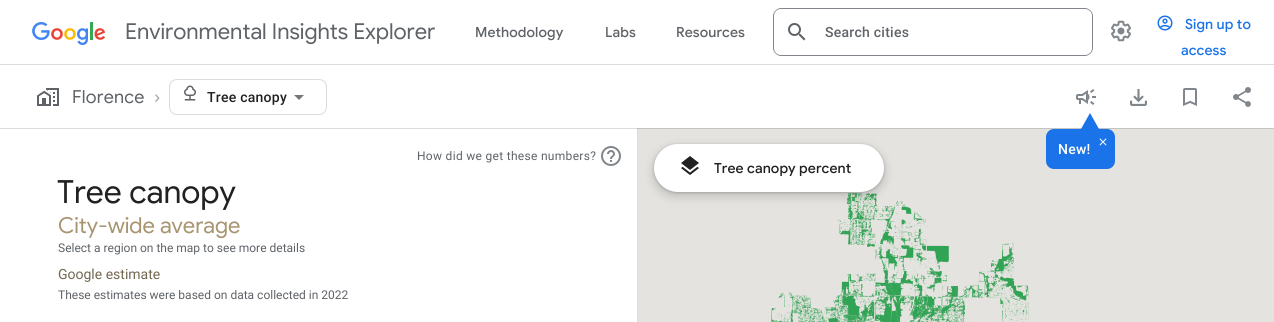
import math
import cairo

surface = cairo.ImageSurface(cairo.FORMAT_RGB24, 1274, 322)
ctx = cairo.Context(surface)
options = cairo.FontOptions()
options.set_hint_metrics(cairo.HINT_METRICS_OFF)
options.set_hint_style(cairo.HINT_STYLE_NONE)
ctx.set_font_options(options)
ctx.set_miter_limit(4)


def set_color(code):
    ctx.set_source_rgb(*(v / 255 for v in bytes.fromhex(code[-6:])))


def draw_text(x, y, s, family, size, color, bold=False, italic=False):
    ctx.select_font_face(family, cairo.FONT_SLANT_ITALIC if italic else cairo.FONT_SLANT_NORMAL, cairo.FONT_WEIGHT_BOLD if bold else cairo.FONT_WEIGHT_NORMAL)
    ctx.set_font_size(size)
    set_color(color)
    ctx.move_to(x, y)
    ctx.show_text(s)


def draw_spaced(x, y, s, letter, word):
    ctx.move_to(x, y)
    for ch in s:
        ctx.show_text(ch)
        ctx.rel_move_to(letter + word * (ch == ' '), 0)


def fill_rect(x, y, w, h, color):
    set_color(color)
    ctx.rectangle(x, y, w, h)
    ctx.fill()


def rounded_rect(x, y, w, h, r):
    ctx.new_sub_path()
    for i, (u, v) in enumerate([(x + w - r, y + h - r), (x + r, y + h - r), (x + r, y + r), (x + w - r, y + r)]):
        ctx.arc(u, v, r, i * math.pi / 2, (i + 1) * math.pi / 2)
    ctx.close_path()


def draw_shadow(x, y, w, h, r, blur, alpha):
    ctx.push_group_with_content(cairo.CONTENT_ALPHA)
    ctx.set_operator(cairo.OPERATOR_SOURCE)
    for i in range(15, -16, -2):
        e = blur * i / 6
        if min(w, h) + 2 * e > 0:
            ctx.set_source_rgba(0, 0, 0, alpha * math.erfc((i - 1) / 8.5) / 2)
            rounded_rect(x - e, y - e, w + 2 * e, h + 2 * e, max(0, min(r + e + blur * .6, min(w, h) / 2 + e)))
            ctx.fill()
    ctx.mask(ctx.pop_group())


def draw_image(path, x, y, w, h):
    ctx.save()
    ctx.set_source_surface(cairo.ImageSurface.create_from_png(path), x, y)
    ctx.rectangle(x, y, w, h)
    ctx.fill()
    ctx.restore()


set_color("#ffffff")
ctx.paint()
fill_rect(637, 128, 1, 194, "#dadce0")
fill_rect(638, 128, 636, 194, "#e5e3df")
ctx.save()
ctx.rectangle(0, 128, 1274, 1)
ctx.clip()
set_color("#000000")
draw_shadow(0, 65, 1274, 64, 0, 0.5, 0.16)
ctx.restore()
fill_rect(0, 64, 1274, 1, "#dadce0")
draw_image("assets/img1.png", 32, 22, 74, 23)
draw_text(125, 39, "Environmental Insights Explorer", "Google Sans", 22, "#5f6368")
ctx.select_font_face("Google Sans Medium")
ctx.set_font_size(14)
draw_spaced(475, 37, "Methodology", 0.1, 0)
draw_spaced(605, 37, "Labs", 0.1, 0)
draw_spaced(676, 37, "Resources", 0.1, 0)
set_color("#80868b")
ctx.set_fill_rule(cairo.FILL_RULE_EVEN_ODD)
ctx.new_path()
ctx.move_to(781, 8)
ctx.line_to(785, 8)
ctx.line_to(785, 56)
ctx.line_to(781, 56)
ctx.curve_to(777, 56, 773, 52, 773, 48)
ctx.line_to(773, 16)
ctx.curve_to(773, 12, 777, 8, 781, 8)
ctx.close_path()
ctx.move_to(781, 9)
ctx.line_to(785, 9)
ctx.line_to(785, 55)
ctx.line_to(781, 55)
ctx.curve_to(777, 55, 774, 52, 774, 48)
ctx.line_to(774, 16)
ctx.curve_to(774, 12, 777, 9, 781, 9)
ctx.close_path()
ctx.fill()
ctx.new_path()
ctx.move_to(785, 8)
ctx.line_to(1085, 8)
ctx.curve_to(1089, 8, 1093, 12, 1093, 16)
ctx.line_to(1093, 48)
ctx.curve_to(1093, 52, 1089, 56, 1085, 56)
ctx.line_to(785, 56)
ctx.close_path()
ctx.move_to(785, 9)
ctx.line_to(1085, 9)
ctx.curve_to(1089, 9, 1092, 12, 1092, 16)
ctx.line_to(1092, 48)
ctx.curve_to(1092, 52, 1089, 55, 1085, 55)
ctx.line_to(785, 55)
ctx.close_path()
ctx.fill()
draw_image("assets/img2.png", 788, 23, 18, 18)
ctx.select_font_face("Roboto Medium")
set_color("#5f6368")
draw_spaced(825, 37, "Search cities", 0.25, 0)
draw_image("assets/img3.png", 1111, 20, 20, 22)
draw_image("assets/img4.png", 1157, 15, 16, 16)
ctx.select_font_face("Google Sans Medium")
set_color("#1a73e8")
draw_spaced(1185, 29, "Sign up to", 0.1, 0)
draw_spaced(1181, 55, "access", 0.1, 0)
draw_image("assets/img5.png", 37, 88, 22, 18)
ctx.select_font_face("Google Sans")
ctx.set_font_size(18)
set_color("#5f6368")
draw_spaced(72, 103, "Florence", 0.25, 0)
set_color("#9aa0a6")
draw_spaced(154, 103, "›", 0.25, 0)
rounded_rect(169.5, 79.5, 157, 35, 7.5)
set_color("#dadce0")
ctx.set_line_width(1)
ctx.stroke()
draw_image("assets/img6.png", 184, 85, 12, 16)
ctx.select_font_face("Roboto Medium")
ctx.set_font_size(14)
set_color("#212121")
draw_spaced(207, 102, "Tree canopy", 0.25, 0)
set_color("#757575")
ctx.set_fill_rule(cairo.FILL_RULE_WINDING)
ctx.new_path()
ctx.move_to(294, 95)
ctx.line_to(299, 100)
ctx.line_to(304, 95)
ctx.close_path()
ctx.fill()
draw_image("assets/img7.png", 1130, 89, 17, 17)
draw_image("assets/img8.png", 1183, 88, 14, 18)
draw_image("assets/img9.png", 1233, 87, 18, 20)
draw_image("assets/img10.png", 1076, 89, 20, 16)
set_color("#1a73e8")
rounded_rect(1046, 129, 69, 40, 8)
ctx.fill()
ctx.new_path()
ctx.move_to(1099, 129)
ctx.line_to(1081, 129)
ctx.line_to(1090, 113)
ctx.close_path()
ctx.fill()
draw_image("assets/img11.png", 1099, 138, 8, 8)
ctx.select_font_face("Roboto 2 Medium")
set_color("#ffffff")
draw_spaced(1058, 154, "New!", 0.25, 0)
ctx.select_font_face("Roboto")
ctx.set_font_size(12)
set_color("#5f6368")
draw_spaced(417, 160, "How did we get these numbers?", 0.3, 0)
draw_image("assets/img12.png", 601, 146, 20, 20)
draw_text(57, 203, "Tree canopy", "Google Sans", 32, "#212121")
draw_text(58, 233, "City-wide average", "Google Sans", 22, "#a79471")
draw_text(58, 252, "Select a region on the map to see more details", "Roboto", 12, "#5f6368")
draw_text(58, 279, "Google estimate", "Roboto", 14, "#736852")
draw_text(58, 299, "These estimates were based on data collected in 2022", "Roboto", 12, "#5f6368")
draw_image("assets/img13.png", 847, 193, 30, 6)
draw_image("assets/img14.png", 771, 199, 241, 123)
draw_image("assets/img15.png", 1012, 243, 17, 79)
set_color("#3c4043")
draw_shadow(651, 145, 236, 54, 27, 4, 0.15)
draw_shadow(654, 145, 230, 48, 24, 1.5, 0.3)
set_color("#ffffff")
rounded_rect(654, 144, 230, 48, 24)
ctx.fill()
draw_image("assets/img16.png", 681, 156, 18, 19)
ctx.select_font_face("Google Sans Medium")
ctx.set_font_size(14)
set_color("#212121")
draw_spaced(714, 173, "Tree canopy percent", 0.1, 0)
surface.write_to_png("output.png")
